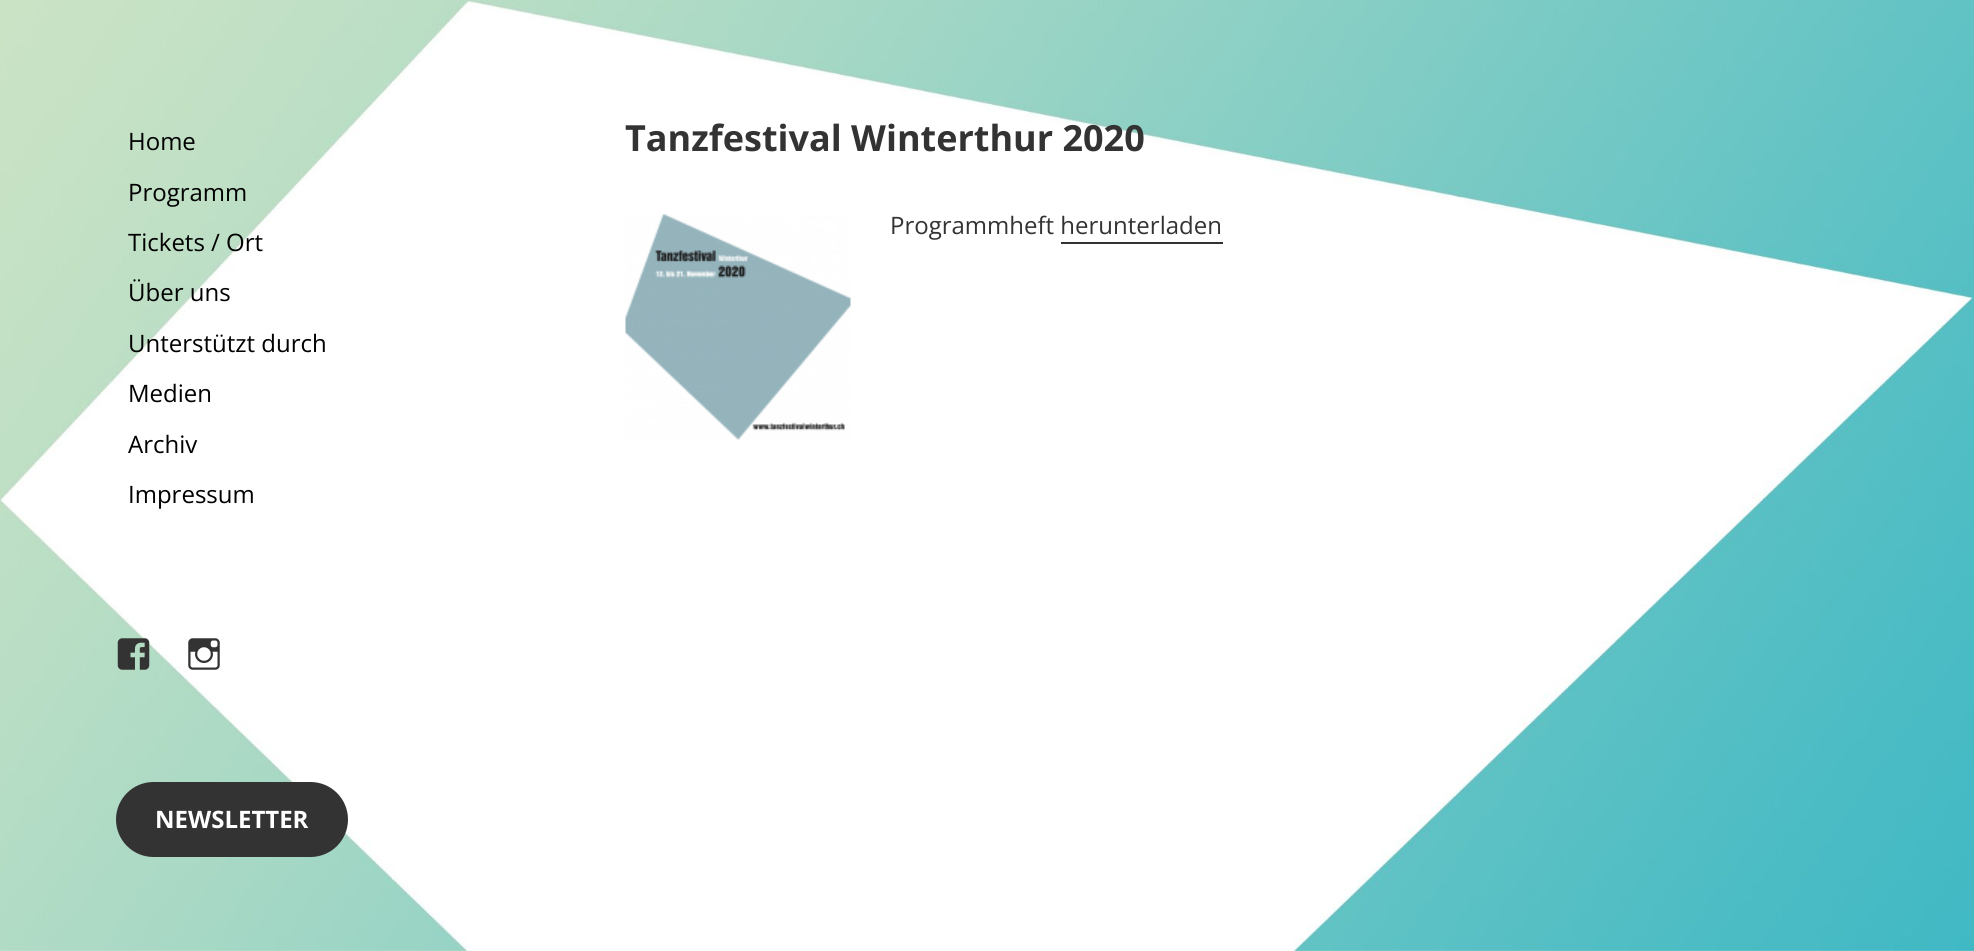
import math
import cairo

surface = cairo.ImageSurface(cairo.FORMAT_RGB24, 1974, 951)
ctx = cairo.Context(surface)
options = cairo.FontOptions()
options.set_hint_metrics(cairo.HINT_METRICS_OFF)
options.set_hint_style(cairo.HINT_STYLE_NONE)
ctx.set_font_options(options)
ctx.set_miter_limit(4)


def set_color(code):
    ctx.set_source_rgb(*(v / 255 for v in bytes.fromhex(code[-6:])))


def draw_text(x, y, s, family, size, color, bold=False, italic=False):
    ctx.select_font_face(family, cairo.FONT_SLANT_ITALIC if italic else cairo.FONT_SLANT_NORMAL, cairo.FONT_WEIGHT_BOLD if bold else cairo.FONT_WEIGHT_NORMAL)
    ctx.set_font_size(size)
    set_color(color)
    ctx.move_to(x, y)
    ctx.show_text(s)


def fill_rect(x, y, w, h, color):
    set_color(color)
    ctx.rectangle(x, y, w, h)
    ctx.fill()


def rounded_rect(x, y, w, h, r):
    ctx.new_sub_path()
    for i, (u, v) in enumerate([(x + w - r, y + h - r), (x + r, y + h - r), (x + r, y + r), (x + w - r, y + r)]):
        ctx.arc(u, v, r, i * math.pi / 2, (i + 1) * math.pi / 2)
    ctx.close_path()


def draw_image(path, x, y, w, h):
    ctx.save()
    ctx.set_source_surface(cairo.ImageSurface.create_from_png(path), x, y)
    ctx.rectangle(x, y, w, h)
    ctx.fill()
    ctx.restore()


set_color("#ffffff")
ctx.paint()
draw_image("assets/img1.png", 0, 0, 1974, 951)
draw_text(128, 150, "Home", "Open Sans", 24, "#000000")
draw_text(128, 201, "Programm", "Open Sans", 24, "#000000")
draw_text(128, 251, "Tickets / Ort", "Open Sans", 24, "#000000")
draw_text(128, 301, "Über uns", "Open Sans", 24, "#000000")
draw_text(128, 352, "Unterstützt durch", "Open Sans", 24, "#000000")
draw_text(128, 402, "Medien", "Open Sans", 24, "#000000")
draw_text(128, 453, "Archiv", "Open Sans", 24, "#000000")
draw_text(128, 503, "Impressum", "Open Sans", 24, "#000000")
draw_image("assets/img2.png", 117, 638, 33, 32)
draw_image("assets/img3.png", 188, 638, 32, 32)
set_color("#333333")
rounded_rect(116, 782, 232, 75, 37.5)
ctx.fill()
draw_text(155, 828, "NEWSLETTER", "Noto Sans", 24, "#ffffff", bold=True)
draw_text(625, 151, "Tanzfestival Winterthur 2020", "Open Sans", 36, "#333333", bold=True)
draw_image("assets/img4.png", 625, 214, 226, 226)
draw_text(890, 234, "Programmheft herunterladen", "Open Sans", 24, "#333333")
fill_rect(1061, 242, 162, 2, "#333333")
surface.write_to_png("output.png")
